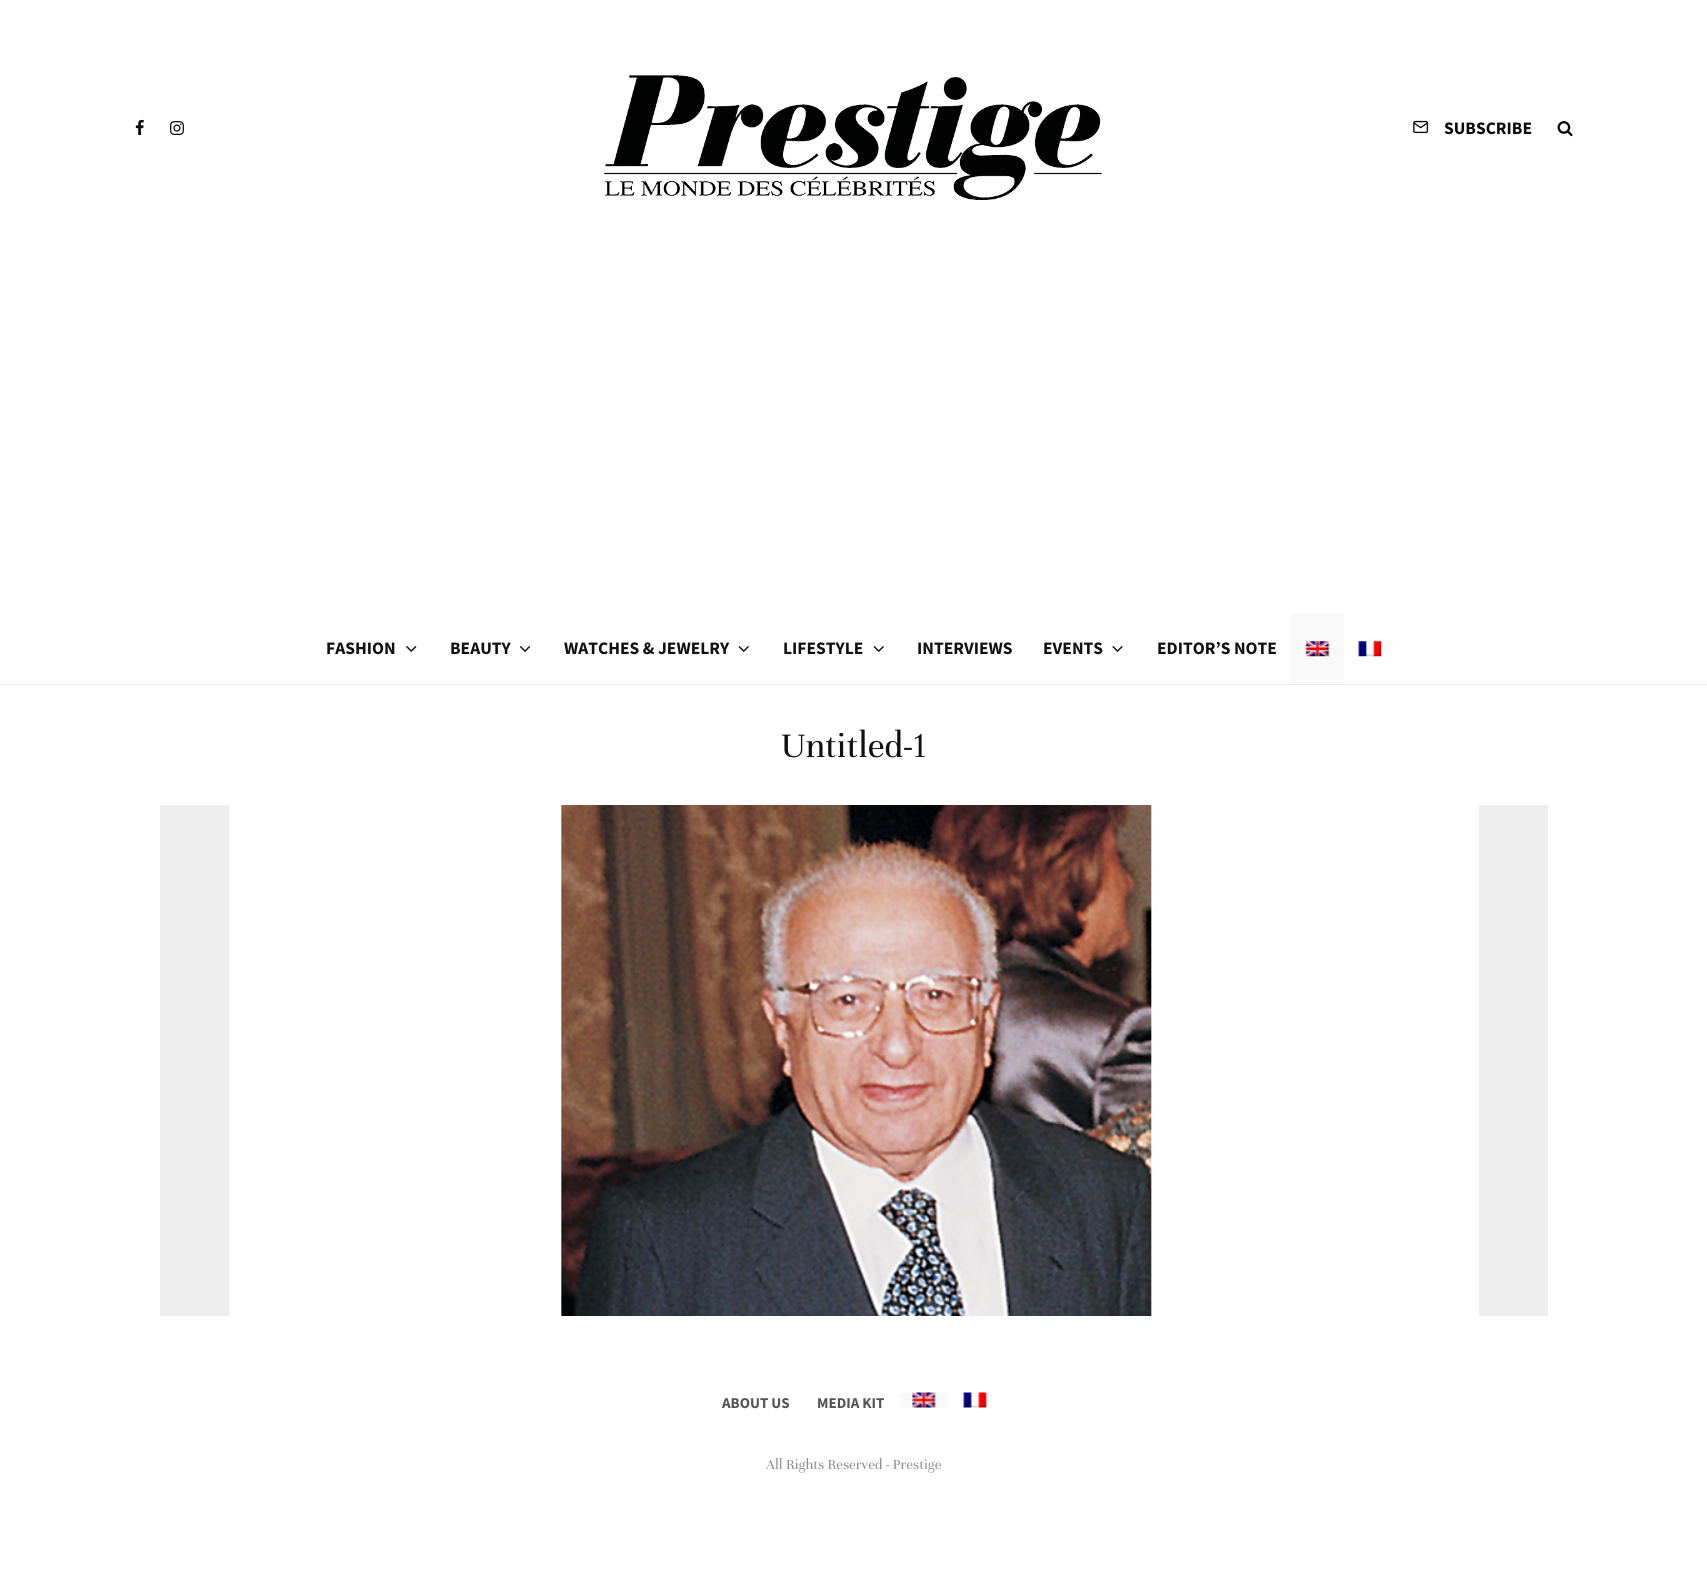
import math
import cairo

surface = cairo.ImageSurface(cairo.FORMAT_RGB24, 1707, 1589)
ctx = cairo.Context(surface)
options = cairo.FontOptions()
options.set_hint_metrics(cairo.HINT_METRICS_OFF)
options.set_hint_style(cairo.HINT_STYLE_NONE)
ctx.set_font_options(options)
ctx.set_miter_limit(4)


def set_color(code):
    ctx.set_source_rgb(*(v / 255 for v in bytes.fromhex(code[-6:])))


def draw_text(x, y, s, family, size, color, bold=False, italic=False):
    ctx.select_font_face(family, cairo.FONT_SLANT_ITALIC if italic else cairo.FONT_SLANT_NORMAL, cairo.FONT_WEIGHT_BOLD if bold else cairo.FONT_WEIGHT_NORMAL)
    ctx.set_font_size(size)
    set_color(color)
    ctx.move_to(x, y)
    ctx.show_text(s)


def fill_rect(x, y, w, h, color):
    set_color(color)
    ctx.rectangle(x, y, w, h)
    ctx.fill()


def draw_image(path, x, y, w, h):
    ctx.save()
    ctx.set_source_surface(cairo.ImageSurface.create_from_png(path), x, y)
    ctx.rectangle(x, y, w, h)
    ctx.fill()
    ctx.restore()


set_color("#ffffff")
ctx.paint()
draw_image("assets/img1.png", 135, 119, 9, 16)
draw_image("assets/img2.png", 170, 121, 14, 14)
draw_image("assets/img3.png", 604, 75, 498, 125)
draw_image("assets/img4.png", 1413, 120, 16, 14)
draw_text(1444, 134, "SUBSCRIBE", "Source Sans Pro", 17.5, "#0a0a0a", bold=True)
draw_image("assets/img5.png", 1557, 121, 16, 16)
fill_rect(0, 684, 1707, 1, "#ededed")
draw_text(326, 654, "FASHION", "Source Sans Pro", 17.5, "#111111", bold=True)
draw_image("assets/img6.png", 406, 646, 11, 6)
draw_text(450, 654, "BEAUTY", "Source Sans Pro", 17.5, "#111111", bold=True)
draw_image("assets/img7.png", 519, 646, 12, 6)
draw_text(564, 654, "WATCHES & JEWELRY", "Source Sans Pro", 17.5, "#111111", bold=True)
draw_image("assets/img8.png", 738, 646, 11, 6)
draw_text(783, 654, "LIFESTYLE", "Source Sans Pro", 17.5, "#111111", bold=True)
draw_image("assets/img8.png", 873, 646, 11, 6)
draw_text(917, 654, "INTERVIEWS", "Source Sans Pro", 17.5, "#111111", bold=True)
draw_text(1043, 654, "EVENTS", "Source Sans Pro", 17.5, "#111111", bold=True)
draw_image("assets/img9.png", 1112, 646, 11, 6)
draw_text(1157, 654, "EDITOR’S NOTE", "Source Sans Pro", 17.5, "#111111", bold=True)
fill_rect(1291, 613, 53, 71, "#f9f9f9")
draw_image("assets/img10.png", 1306, 641, 24, 16)
draw_image("assets/img11.png", 1358, 641, 24, 16)
draw_text(781, 757, "Untitled-1", "Unna", 37.5, "#111111")
fill_rect(160, 805, 1388, 511, "#eeeeee")
draw_image("assets/img12.png", 229, 805, 1250, 511)
draw_text(722, 1408, "ABOUT US", "Source Sans Pro", 15, "#555555", bold=True)
draw_text(817, 1408, "MEDIA KIT", "Source Sans Pro", 15, "#555555", bold=True)
fill_rect(900, 1393, 48, 15, "#f9f9f9")
draw_image("assets/img13.png", 912, 1392, 24, 16)
draw_image("assets/img14.png", 963, 1392, 24, 16)
draw_text(766, 1469, "All Rights Reserved - Prestige", "Unna", 15, "#8e8e8e")
surface.write_to_png("output.png")
